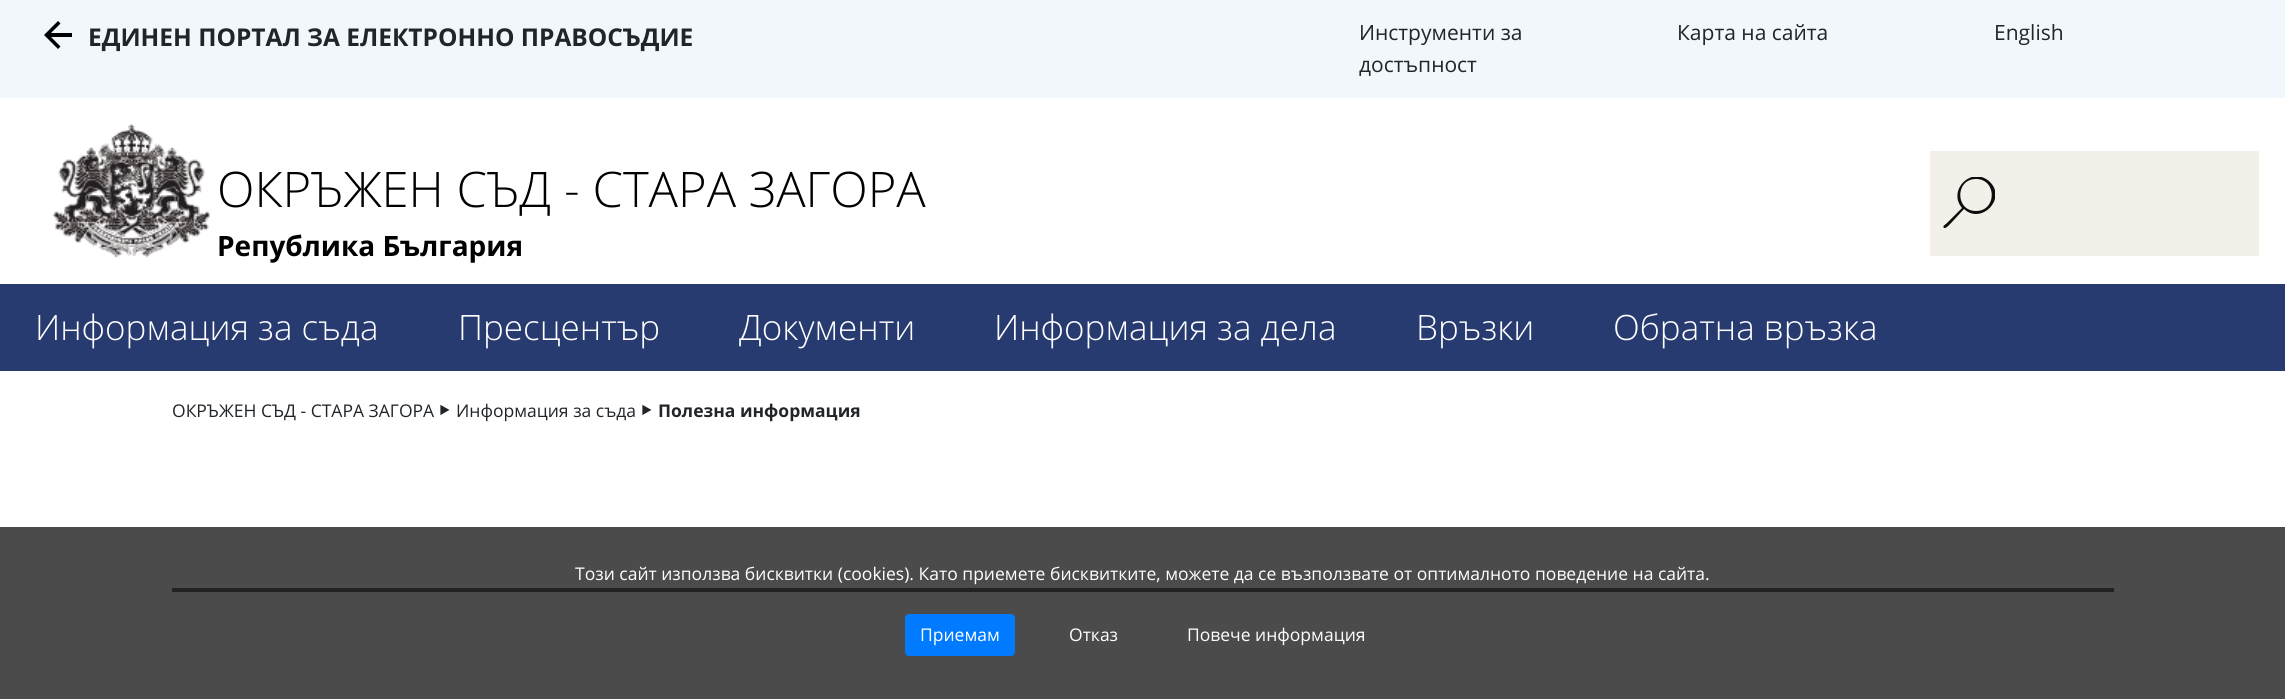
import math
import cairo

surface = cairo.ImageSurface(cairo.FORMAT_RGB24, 2285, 699)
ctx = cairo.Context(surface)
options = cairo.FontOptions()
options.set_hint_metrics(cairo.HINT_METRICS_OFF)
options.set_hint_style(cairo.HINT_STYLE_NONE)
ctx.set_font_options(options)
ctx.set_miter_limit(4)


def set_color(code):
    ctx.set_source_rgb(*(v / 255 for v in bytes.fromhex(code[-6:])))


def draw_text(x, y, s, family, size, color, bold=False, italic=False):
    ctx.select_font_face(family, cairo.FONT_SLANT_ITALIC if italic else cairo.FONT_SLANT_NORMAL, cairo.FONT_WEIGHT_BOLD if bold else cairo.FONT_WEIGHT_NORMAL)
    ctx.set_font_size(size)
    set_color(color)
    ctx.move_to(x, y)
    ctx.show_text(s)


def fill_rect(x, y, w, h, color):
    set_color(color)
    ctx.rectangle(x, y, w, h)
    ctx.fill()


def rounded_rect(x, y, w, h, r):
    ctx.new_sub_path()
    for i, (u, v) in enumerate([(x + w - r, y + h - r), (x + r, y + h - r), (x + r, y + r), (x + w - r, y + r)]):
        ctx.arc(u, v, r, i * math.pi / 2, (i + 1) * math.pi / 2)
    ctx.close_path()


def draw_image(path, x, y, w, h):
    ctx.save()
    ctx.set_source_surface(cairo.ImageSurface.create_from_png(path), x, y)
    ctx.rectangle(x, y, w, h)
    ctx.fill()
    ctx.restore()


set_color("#ffffff")
ctx.paint()
fill_rect(0, 0, 2285, 98, "#f1f7fb")
set_color("#000000")
ctx.new_path()
ctx.move_to(72, 33)
ctx.line_to(72, 37)
ctx.line_to(51, 37)
ctx.line_to(60.5, 46.5)
ctx.line_to(58, 49)
ctx.line_to(44, 35)
ctx.line_to(58, 21)
ctx.line_to(60.5, 23.5)
ctx.line_to(51, 33)
ctx.close_path()
ctx.fill()
draw_text(88, 46, "ЕДИНЕН ПОРТАЛ ЗА ЕЛЕКТРОННО ПРАВОСЪДИЕ", "Open Sans", 24.5, "#212529", bold=True)
draw_text(1359, 40, "Инструменти за", "Open Sans", 21, "#212529")
draw_text(1359, 72, "достъпност", "Open Sans", 21, "#212529")
draw_text(1677, 40, "Карта на сайта", "Open Sans", 21, "#212529")
draw_text(1994, 40, "English", "Open Sans", 21, "#212529")
draw_image("assets/img1.png", 52, 124, 158, 134)
draw_text(217, 207, "ОКРЪЖЕН СЪД - СТАРА ЗАГОРА", "Open Sans Light", 49, "#000000")
draw_text(217, 256, "Република България", "Open Sans", 28, "#000000", bold=True)
fill_rect(1930, 151, 329, 105, "#f3f0e9")
ctx.save()
ctx.rectangle(1943, 177, 52, 52)
ctx.clip()
set_color("#0d0d0d")
ctx.new_path()
ctx.move_to(1964, 209)
ctx.line_to(1952, 222)
ctx.curve_to(1951, 223, 1946, 229, 1944, 228)
ctx.curve_to(1942, 226, 1945, 225, 1947, 223)
ctx.line_to(1962, 208)
ctx.curve_to(1947, 190, 1972, 165, 1990, 182)
ctx.curve_to(2007, 199, 1981, 225, 1964, 209)
ctx.close_path()
ctx.move_to(1976, 211)
ctx.curve_to(1997, 211, 1997, 179, 1976, 179)
ctx.curve_to(1955, 179, 1955, 211, 1976, 211)
ctx.close_path()
ctx.fill()
ctx.restore()
fill_rect(0, 284, 2285, 87, "#283b71")
draw_text(35, 340, "Информация за съда", "Open Sans Light", 35, "#ffffff")
draw_text(458, 340, "Пресцентър", "Open Sans Light", 35, "#ffffff")
draw_text(739, 340, "Документи", "Open Sans Light", 35, "#ffffff")
draw_text(994, 340, "Информация за дела", "Open Sans Light", 35, "#ffffff")
draw_text(1416, 340, "Връзки", "Open Sans Light", 35, "#ffffff")
draw_text(1613, 340, "Обратна връзка", "Open Sans Light", 35, "#ffffff")
draw_text(172, 417, "ОКРЪЖЕН СЪД - СТАРА ЗАГОРА", "Open Sans", 17.5, "#212529")
draw_text(438, 423, "‣", "Noto Sans", 35, "#212529")
draw_text(456, 417, "Информация за съда", "Open Sans", 17.5, "#212529")
draw_text(640, 423, "‣", "Noto Sans", 35, "#212529")
draw_text(658, 417, "Полезна информация", "Open Sans", 17.5, "#212529", bold=True)
fill_rect(172, 588, 1942, 4, "#323232")
ctx.set_source_rgba(0.118, 0.118, 0.118, 0.8)
ctx.rectangle(0, 527, 2285, 172)
ctx.fill()
draw_text(575, 580, "Този сайт използва бисквитки (cookies). Като приемете бисквитките, можете да се възползвате от оптималното поведение на сайта.", "Open Sans", 17.5, "#ffffff")
set_color("#007bff")
rounded_rect(906, 615, 108, 40, 3)
ctx.fill_preserve()
ctx.stroke()
draw_text(920, 641, "Приемам", "Open Sans", 17.5, "#ffffff")
draw_text(1069, 641, "Отказ", "Open Sans", 17.5, "#ffffff")
draw_text(1187, 641, "Повече информация", "Open Sans", 17.5, "#ffffff")
surface.write_to_png("output.png")
